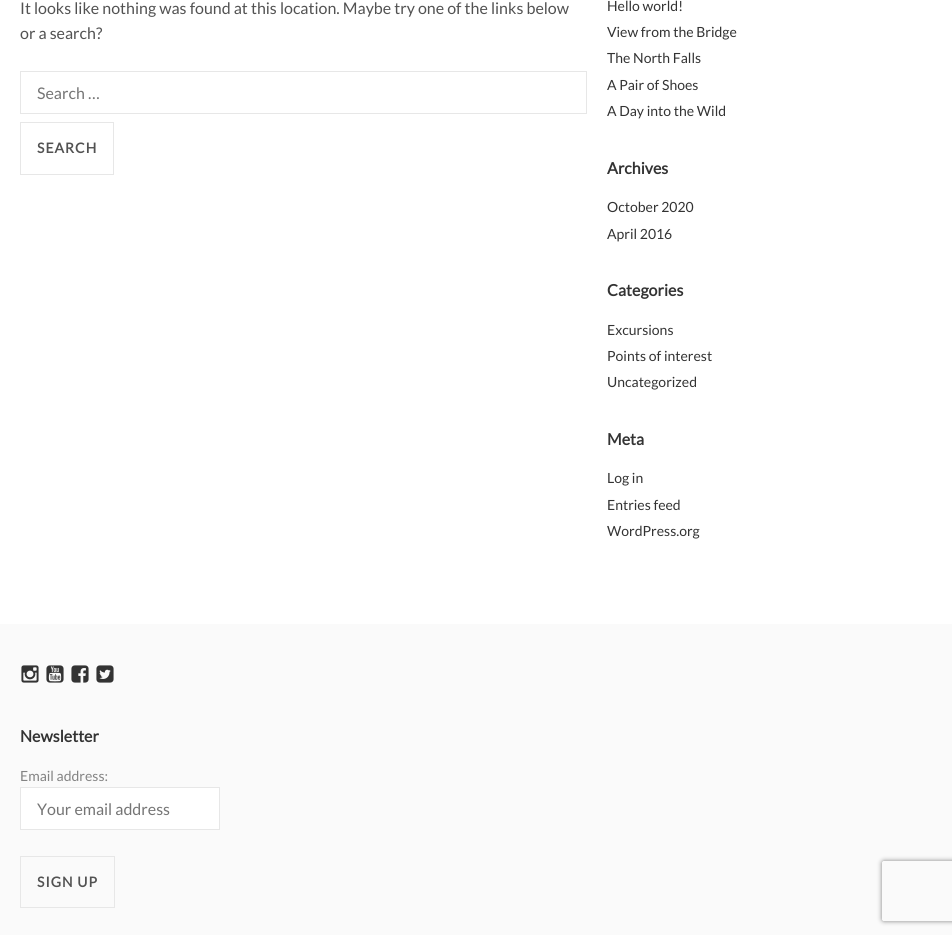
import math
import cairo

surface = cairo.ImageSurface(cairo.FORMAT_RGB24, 952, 935)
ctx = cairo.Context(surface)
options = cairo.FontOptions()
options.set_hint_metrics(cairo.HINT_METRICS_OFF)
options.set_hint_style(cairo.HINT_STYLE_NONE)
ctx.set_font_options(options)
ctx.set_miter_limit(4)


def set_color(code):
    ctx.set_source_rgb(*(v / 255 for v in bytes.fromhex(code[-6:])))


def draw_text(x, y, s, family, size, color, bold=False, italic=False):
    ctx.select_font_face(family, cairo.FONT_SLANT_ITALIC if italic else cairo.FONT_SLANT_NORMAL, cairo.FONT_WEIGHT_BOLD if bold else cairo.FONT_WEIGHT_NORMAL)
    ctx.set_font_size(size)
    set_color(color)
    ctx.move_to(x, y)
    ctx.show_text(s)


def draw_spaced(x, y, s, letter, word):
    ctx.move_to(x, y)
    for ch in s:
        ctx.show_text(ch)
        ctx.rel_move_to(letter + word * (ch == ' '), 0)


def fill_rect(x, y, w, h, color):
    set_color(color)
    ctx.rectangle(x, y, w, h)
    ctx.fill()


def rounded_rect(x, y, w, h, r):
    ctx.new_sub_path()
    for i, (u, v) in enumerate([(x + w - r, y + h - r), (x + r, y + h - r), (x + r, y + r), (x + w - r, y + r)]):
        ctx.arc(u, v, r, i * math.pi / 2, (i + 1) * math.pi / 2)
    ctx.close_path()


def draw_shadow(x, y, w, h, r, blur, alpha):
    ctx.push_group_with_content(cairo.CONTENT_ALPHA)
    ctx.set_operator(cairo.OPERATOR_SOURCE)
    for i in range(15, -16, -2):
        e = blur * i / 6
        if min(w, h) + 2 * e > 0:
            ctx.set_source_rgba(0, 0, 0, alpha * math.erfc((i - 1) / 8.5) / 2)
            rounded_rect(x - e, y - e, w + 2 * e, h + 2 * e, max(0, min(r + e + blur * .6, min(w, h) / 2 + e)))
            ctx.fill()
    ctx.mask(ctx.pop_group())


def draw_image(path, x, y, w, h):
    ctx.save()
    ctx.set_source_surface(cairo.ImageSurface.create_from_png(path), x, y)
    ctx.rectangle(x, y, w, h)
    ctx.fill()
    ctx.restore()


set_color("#ffffff")
ctx.paint()
draw_text(20, 14, "It looks like nothing was found at this location. Maybe try one of the links below", "Lato", 16, "#525252")
draw_text(20, 39, "or a search?", "Lato", 16, "#525252")
ctx.rectangle(20.5, 71.5, 566, 42)
set_color("#e7e7e7")
ctx.set_line_width(1)
ctx.stroke()
draw_text(37, 99, "Search …", "Lato", 16, "#757575")
ctx.rectangle(20.5, 122.5, 93, 52)
set_color("#e7e7e7")
ctx.stroke()
ctx.select_font_face("Lato", cairo.FONT_SLANT_NORMAL, cairo.FONT_WEIGHT_BOLD)
ctx.set_font_size(14)
set_color("#525252")
draw_spaced(37, 153, "SEARCH", 1, 0)
draw_text(607, 11, "Hello world!", "Lato", 14, "#333333")
draw_text(607, 37, "View from the Bridge", "Lato", 14, "#333333")
draw_text(607, 63, "The North Falls", "Lato", 14, "#333333")
draw_text(607, 90, "A Pair of Shoes", "Lato", 14, "#333333")
draw_text(607, 116, "A Day into the Wild", "Lato", 14, "#333333")
draw_text(607, 174, "Archives", "Lato", 16, "#333333", bold=True)
draw_text(607, 212, "October 2020", "Lato", 14, "#333333")
draw_text(607, 239, "April 2016", "Lato", 14, "#333333")
draw_text(607, 296, "Categories", "Lato", 16, "#333333", bold=True)
draw_text(607, 335, "Excursions", "Lato", 14, "#333333")
draw_text(607, 361, "Points of interest", "Lato", 14, "#333333")
draw_text(607, 387, "Uncategorized", "Lato", 14, "#333333")
draw_text(607, 445, "Meta", "Lato", 16, "#333333", bold=True)
draw_text(607, 483, "Log in", "Lato", 14, "#333333")
draw_text(607, 510, "Entries feed", "Lato", 14, "#333333")
draw_text(607, 536, "WordPress.org", "Lato", 14, "#333333")
fill_rect(0, 624, 952, 311, "#fafafa")
draw_image("assets/img1.png", 21, 665, 18, 18)
draw_image("assets/img2.png", 46, 665, 18, 18)
draw_image("assets/img3.png", 71, 665, 18, 18)
draw_image("assets/img4.png", 96, 665, 18, 18)
draw_text(20, 742, "Newsletter", "Lato", 16, "#333333", bold=True)
draw_text(20, 781, "Email address:", "Lato", 14, "#838383")
set_color("#ffffff")
ctx.rectangle(20.5, 787.5, 199, 42)
ctx.fill_preserve()
set_color("#e7e7e7")
ctx.stroke()
draw_text(37, 815, "Your email address", "Lato", 16, "#757575")
ctx.rectangle(20.5, 856.5, 94, 51)
set_color("#e7e7e7")
ctx.stroke()
ctx.select_font_face("Lato", cairo.FONT_SLANT_NORMAL, cairo.FONT_WEIGHT_BOLD)
ctx.set_font_size(14)
set_color("#525252")
draw_spaced(37, 887, "SIGN UP", 1, 0)
ctx.save()
ctx.set_fill_rule(cairo.FILL_RULE_EVEN_ODD)
ctx.new_path()
ctx.move_to(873, 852)
ctx.line_to(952, 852)
ctx.line_to(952, 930)
ctx.line_to(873, 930)
ctx.close_path()
ctx.move_to(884, 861)
ctx.line_to(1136, 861)
ctx.curve_to(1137, 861, 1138, 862, 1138, 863)
ctx.line_to(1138, 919)
ctx.curve_to(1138, 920, 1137, 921, 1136, 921)
ctx.line_to(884, 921)
ctx.curve_to(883, 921, 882, 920, 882, 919)
ctx.line_to(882, 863)
ctx.curve_to(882, 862, 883, 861, 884, 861)
ctx.close_path()
ctx.clip()
set_color("#808080")
draw_shadow(882, 861, 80, 60, 2, 2.5, 1)
ctx.restore()
surface.write_to_png("output.png")
